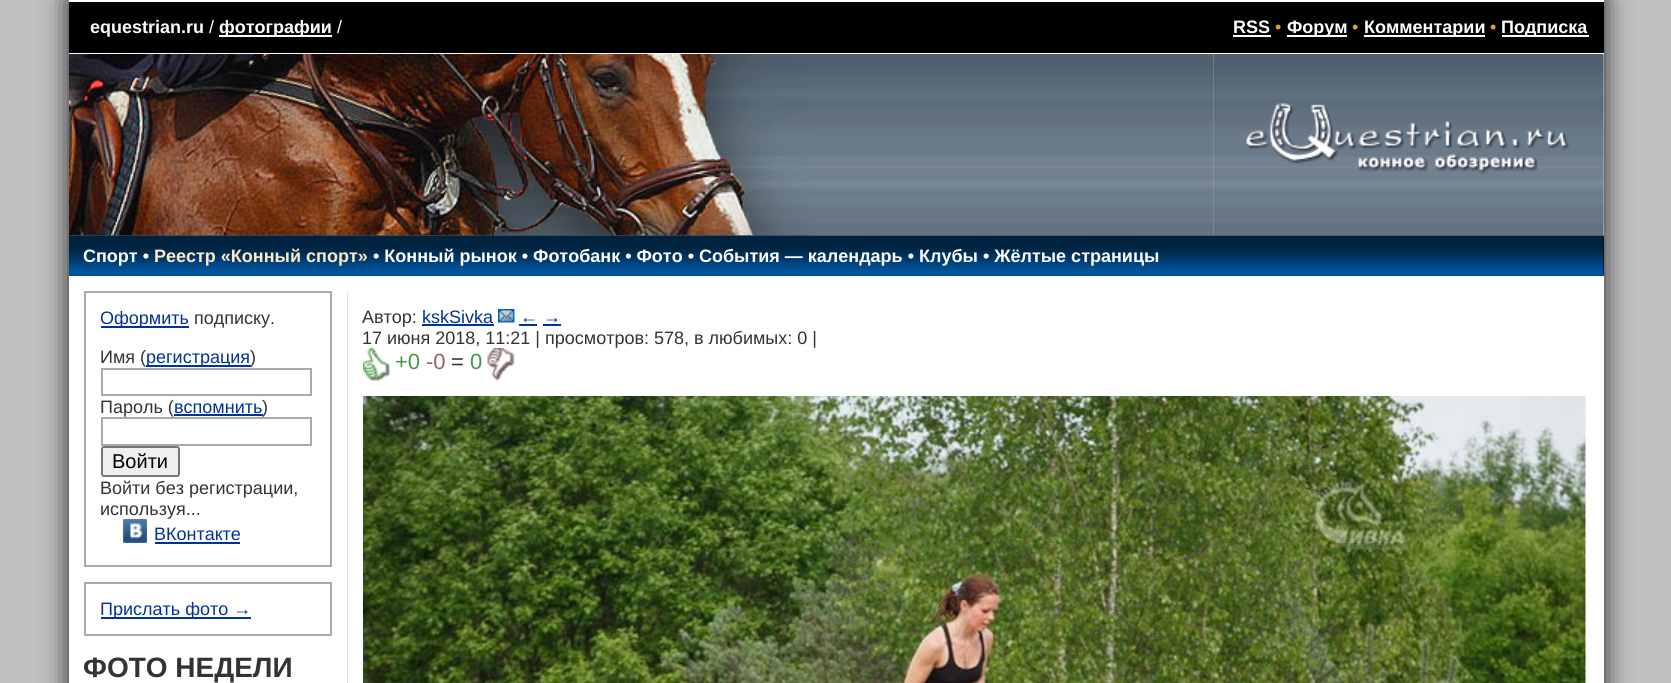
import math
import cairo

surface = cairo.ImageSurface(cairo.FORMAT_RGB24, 1671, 683)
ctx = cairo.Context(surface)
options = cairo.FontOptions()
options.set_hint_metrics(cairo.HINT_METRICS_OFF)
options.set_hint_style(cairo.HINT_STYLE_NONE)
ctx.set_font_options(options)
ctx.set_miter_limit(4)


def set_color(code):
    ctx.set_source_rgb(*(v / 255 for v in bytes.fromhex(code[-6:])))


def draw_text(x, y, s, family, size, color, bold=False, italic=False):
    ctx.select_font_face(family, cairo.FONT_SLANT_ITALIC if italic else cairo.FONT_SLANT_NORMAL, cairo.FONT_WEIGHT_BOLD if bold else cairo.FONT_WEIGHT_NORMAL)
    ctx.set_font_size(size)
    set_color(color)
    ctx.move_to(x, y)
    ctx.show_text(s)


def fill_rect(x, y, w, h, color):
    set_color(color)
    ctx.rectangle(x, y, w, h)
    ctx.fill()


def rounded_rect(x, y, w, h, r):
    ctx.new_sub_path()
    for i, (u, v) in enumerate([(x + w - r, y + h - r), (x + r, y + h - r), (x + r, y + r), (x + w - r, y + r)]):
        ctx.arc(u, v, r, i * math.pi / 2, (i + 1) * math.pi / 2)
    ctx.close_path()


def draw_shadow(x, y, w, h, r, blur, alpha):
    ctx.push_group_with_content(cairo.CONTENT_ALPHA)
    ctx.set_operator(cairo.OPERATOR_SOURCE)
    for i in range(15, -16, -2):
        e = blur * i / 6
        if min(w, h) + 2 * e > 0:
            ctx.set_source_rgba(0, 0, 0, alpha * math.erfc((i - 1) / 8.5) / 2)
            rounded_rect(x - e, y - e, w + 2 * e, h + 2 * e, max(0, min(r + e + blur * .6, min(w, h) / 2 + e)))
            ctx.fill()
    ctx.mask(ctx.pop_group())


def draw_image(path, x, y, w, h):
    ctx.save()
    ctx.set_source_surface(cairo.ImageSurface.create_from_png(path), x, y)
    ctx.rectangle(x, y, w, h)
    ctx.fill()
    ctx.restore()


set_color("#c0c0c0")
ctx.paint()
set_color("#212121")
draw_shadow(69, 0, 1535, 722, 0, 13, 1)
fill_rect(69, 55, 1535, 181, "#c0c0c0")
fill_rect(69, 2, 1535, 51, "#000000")
fill_rect(69, 0, 1535, 2, "#ffffff")
fill_rect(69, 53, 1535, 2, "#ffffff")
draw_text(90, 33, "equestrian.ru", "Liberation Sans", 18, "#ffffff", bold=True)
draw_text(209, 33, "/", "Liberation Sans", 18, "#ffffff")
fill_rect(219, 35, 113, 2, "#ffffff")
draw_text(219, 33, "фотографии", "Liberation Sans", 18, "#ffffff", bold=True)
draw_text(337, 33, "/", "Liberation Sans", 18, "#ffffff")
draw_text(1233, 33, "RSS", "Liberation Sans", 18, "#ffffff", bold=True)
fill_rect(1233, 35, 38, 2, "#ffffff")
draw_text(1275, 33, "•", "Liberation Sans", 18, "#eba02b")
fill_rect(1287, 35, 60, 2, "#ffffff")
draw_text(1287, 33, "Форум", "Liberation Sans", 18, "#ffffff", bold=True)
draw_text(1352, 33, "•", "Liberation Sans", 18, "#eba02b")
fill_rect(1364, 35, 121, 2, "#ffffff")
draw_text(1364, 33, "Комментарии", "Liberation Sans", 18, "#ffffff", bold=True)
draw_text(1490, 33, "•", "Liberation Sans", 18, "#eba02b")
fill_rect(1502, 35, 87, 2, "#ffffff")
draw_text(1501, 33, "Подписка", "Liberation Sans", 18, "#ffffff", bold=True)
draw_image("assets/img1.png", 69, 54, 1145, 182)
draw_image("assets/img2.png", 69, 54, 741, 182)
draw_image("assets/img3.png", 1213, 54, 391, 182)
draw_image("assets/img4.png", 1246, 103, 323, 71)
fill_rect(1603, 236, 1, 40, "#000000")
draw_image("assets/img5.png", 69, 235, 1535, 41)
draw_text(83, 262, "Спорт •", "Liberation Sans", 18, "#ffffff", bold=True)
draw_text(154, 262, "Реестр «Конный спорт»", "Liberation Sans", 18, "#feeac7", bold=True)
draw_text(373, 262, "• Конный рынок • Фотобанк • Фото • События — календарь • Клубы • Жёлтые страницы", "Liberation Sans", 18, "#ffffff", bold=True)
fill_rect(69, 276, 1535, 407, "#ffffff")
fill_rect(347, 291, 1, 392, "#e5e5e5")
ctx.rectangle(85, 292, 246, 274)
set_color("#a9a9a9")
ctx.stroke()
fill_rect(101, 326, 88, 2, "#003399")
draw_text(100, 324, "Оформить", "Liberation Sans", 18, "#003399")
draw_text(194, 324, "подписку.", "Liberation Sans", 18, "#333333")
draw_text(100, 363, "Имя (", "Liberation Sans", 18, "#333333")
fill_rect(146, 365, 105, 2, "#003399")
draw_text(146, 363, "регистрация", "Liberation Sans", 18, "#003399")
draw_text(250, 363, ")", "Liberation Sans", 18, "#333333")
ctx.rectangle(102, 369, 209, 26)
set_color("#a9a9a9")
ctx.stroke()
draw_text(100, 413, "Пароль (", "Liberation Sans", 18, "#333333")
draw_text(174, 413, "вспомнить", "Liberation Sans", 18, "#003399")
fill_rect(174, 414, 89, 2, "#003399")
draw_text(262, 413, ")", "Liberation Sans", 18, "#333333")
ctx.rectangle(102, 418, 209, 27)
set_color("#a9a9a9")
ctx.stroke()
set_color("#efefef")
rounded_rect(102, 447, 77, 29, 2)
ctx.fill_preserve()
set_color("#767676")
ctx.stroke()
draw_text(112, 468, "Войти", "Liberation Sans", 20, "#000000")
draw_text(100, 494, "Войти без регистрации,", "Liberation Sans", 18, "#333333")
draw_text(100, 515, "используя...", "Liberation Sans", 18, "#333333")
draw_image("assets/img6.png", 123, 519, 24, 24)
draw_text(154, 540, "ВКонтакте", "Liberation Sans", 18, "#003399")
fill_rect(155, 542, 85, 2, "#003399")
ctx.rectangle(85, 583, 246, 52)
set_color("#a9a9a9")
ctx.stroke()
fill_rect(101, 617, 150, 2, "#003399")
draw_text(100, 615, "Прислать фото →", "Liberation Sans", 18, "#003399")
draw_text(83, 677, "ФОТО НЕДЕЛИ", "Liberation Sans", 28, "#333333", bold=True)
draw_text(362, 323, "Автор:", "Liberation Sans", 18, "#333333")
draw_text(422, 323, "kskSivka", "Liberation Sans", 18, "#003399")
fill_rect(422, 324, 72, 2, "#003399")
draw_image("assets/img7.png", 498, 309, 17, 14)
draw_text(520, 323, "← →", "Liberation Sans", 18, "#003399")
fill_rect(519, 324, 18, 2, "#003399")
fill_rect(543, 324, 18, 2, "#003399")
draw_text(362, 344, "17 июня 2018, 11:21 | просмотров: 578, в любимых: 0 |", "Liberation Sans", 18, "#333333")
draw_image("assets/img8.png", 363, 348, 27, 33)
draw_text(395, 369, "+0", "Liberation Sans", 22, "#479544")
draw_text(426, 369, "-0", "Liberation Sans", 22, "#8a6767")
draw_text(451, 369, "=", "Liberation Sans", 22, "#333333")
draw_text(470, 369, "0", "Liberation Sans", 22, "#479544")
draw_image("assets/img9.png", 487, 348, 28, 33)
draw_image("assets/img10.png", 363, 396, 1223, 287)
surface.write_to_png("output.png")
